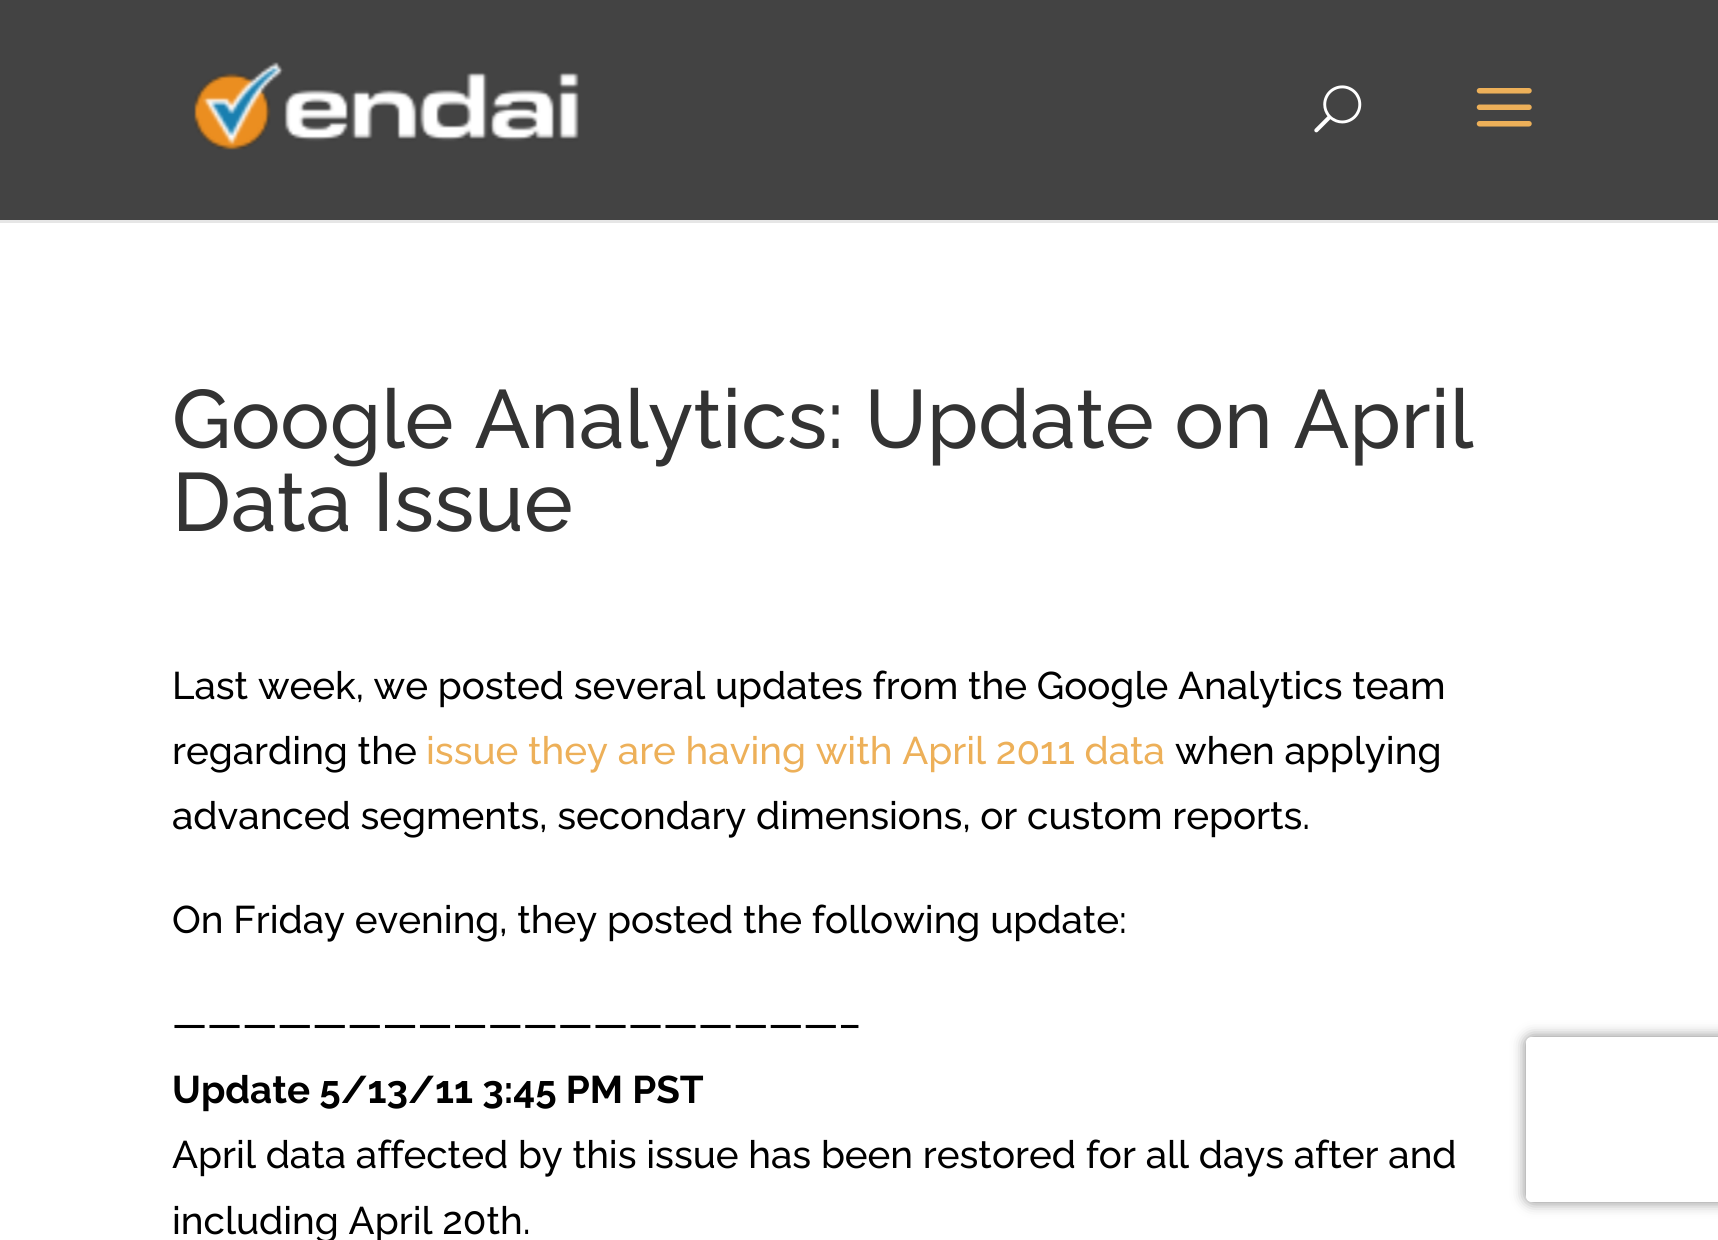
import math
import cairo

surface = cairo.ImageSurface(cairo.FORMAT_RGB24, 1718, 1240)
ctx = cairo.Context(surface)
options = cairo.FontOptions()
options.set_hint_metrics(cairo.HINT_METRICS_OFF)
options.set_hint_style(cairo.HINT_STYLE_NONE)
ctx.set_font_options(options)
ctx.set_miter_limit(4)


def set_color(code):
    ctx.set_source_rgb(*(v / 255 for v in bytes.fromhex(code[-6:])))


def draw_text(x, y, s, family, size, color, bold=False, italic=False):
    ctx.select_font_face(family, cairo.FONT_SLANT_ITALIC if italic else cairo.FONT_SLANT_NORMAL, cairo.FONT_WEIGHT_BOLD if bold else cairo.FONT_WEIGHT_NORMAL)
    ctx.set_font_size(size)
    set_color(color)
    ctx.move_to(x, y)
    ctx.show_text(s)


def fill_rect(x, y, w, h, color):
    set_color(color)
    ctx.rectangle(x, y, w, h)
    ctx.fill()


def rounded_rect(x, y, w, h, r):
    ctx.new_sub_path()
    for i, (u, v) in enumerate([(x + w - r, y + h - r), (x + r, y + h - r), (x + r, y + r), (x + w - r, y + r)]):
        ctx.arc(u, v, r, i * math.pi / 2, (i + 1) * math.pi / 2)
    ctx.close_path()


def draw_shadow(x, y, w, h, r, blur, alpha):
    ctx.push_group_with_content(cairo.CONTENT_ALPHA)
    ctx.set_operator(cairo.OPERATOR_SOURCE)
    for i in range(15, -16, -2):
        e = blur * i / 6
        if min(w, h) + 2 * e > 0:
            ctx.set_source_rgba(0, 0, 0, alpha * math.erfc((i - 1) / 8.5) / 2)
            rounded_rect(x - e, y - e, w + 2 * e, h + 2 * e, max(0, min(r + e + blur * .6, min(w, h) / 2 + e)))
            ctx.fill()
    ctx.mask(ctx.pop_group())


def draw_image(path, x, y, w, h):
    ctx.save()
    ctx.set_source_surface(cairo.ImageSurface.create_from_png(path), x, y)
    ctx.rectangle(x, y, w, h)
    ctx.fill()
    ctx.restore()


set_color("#ffffff")
ctx.paint()
set_color("#e6e6e6")
ctx.new_path()
ctx.move_to(0, 220)
ctx.line_to(0, 223)
ctx.line_to(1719, 223)
ctx.line_to(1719, 3)
ctx.line_to(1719, 220)
ctx.close_path()
ctx.fill()
fill_rect(0, 0, 1718, 220, "#434343")
draw_image("assets/img1.png", 194, 62, 385, 88)
draw_image("assets/img2.png", 1314, 85, 48, 48)
draw_image("assets/img3.png", 1476, 88, 56, 39)
draw_text(172, 448, "Google Analytics: Update on April", "Raleway Medium", 82.5, "#333333")
draw_text(172, 531, "Data Issue", "Raleway Medium", 82.5, "#333333")
draw_text(172, 699, "Last week, we posted several updates from the Google Analytics team", "Raleway Medium", 38.5, "#000000")
draw_text(172, 764, "regarding the", "Raleway Medium", 38.5, "#000000")
draw_text(426, 764, "issue they are having with April 2011 data", "Raleway Medium", 38.5, "#edb059")
draw_text(1175, 764, "when applying", "Raleway Medium", 38.5, "#000000")
draw_text(172, 829, "advanced segments, secondary dimensions, or custom reports.", "Raleway Medium", 38.5, "#000000")
draw_text(172, 933, "On Friday evening, they posted the following update:", "Raleway Medium", 38.5, "#000000")
draw_text(172, 1037, "———————————————————–", "Raleway Medium", 38.5, "#000000")
draw_text(172, 1103, "Update 5/13/11 3:45 PM PST", "Raleway", 38.5, "#000000", bold=True)
draw_text(172, 1168, "April data affected by this issue has been restored for all days after and", "Raleway Medium", 38.5, "#000000")
draw_text(172, 1234, "including April 20th.", "Raleway Medium", 38.5, "#000000")
ctx.save()
ctx.set_fill_rule(cairo.FILL_RULE_EVEN_ODD)
ctx.new_path()
ctx.move_to(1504, 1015)
ctx.line_to(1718, 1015)
ctx.line_to(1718, 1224)
ctx.line_to(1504, 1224)
ctx.close_path()
ctx.move_to(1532, 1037)
ctx.line_to(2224, 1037)
ctx.curve_to(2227.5, 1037, 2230, 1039.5, 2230, 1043)
ctx.line_to(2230, 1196)
ctx.curve_to(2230, 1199.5, 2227.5, 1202, 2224, 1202)
ctx.line_to(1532, 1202)
ctx.curve_to(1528.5, 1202, 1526, 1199.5, 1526, 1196)
ctx.line_to(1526, 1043)
ctx.curve_to(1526, 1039.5, 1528.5, 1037, 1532, 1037)
ctx.close_path()
ctx.clip()
set_color("#808080")
draw_shadow(1526, 1037, 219, 165, 6, 7, 1)
ctx.restore()
surface.write_to_png("output.png")
